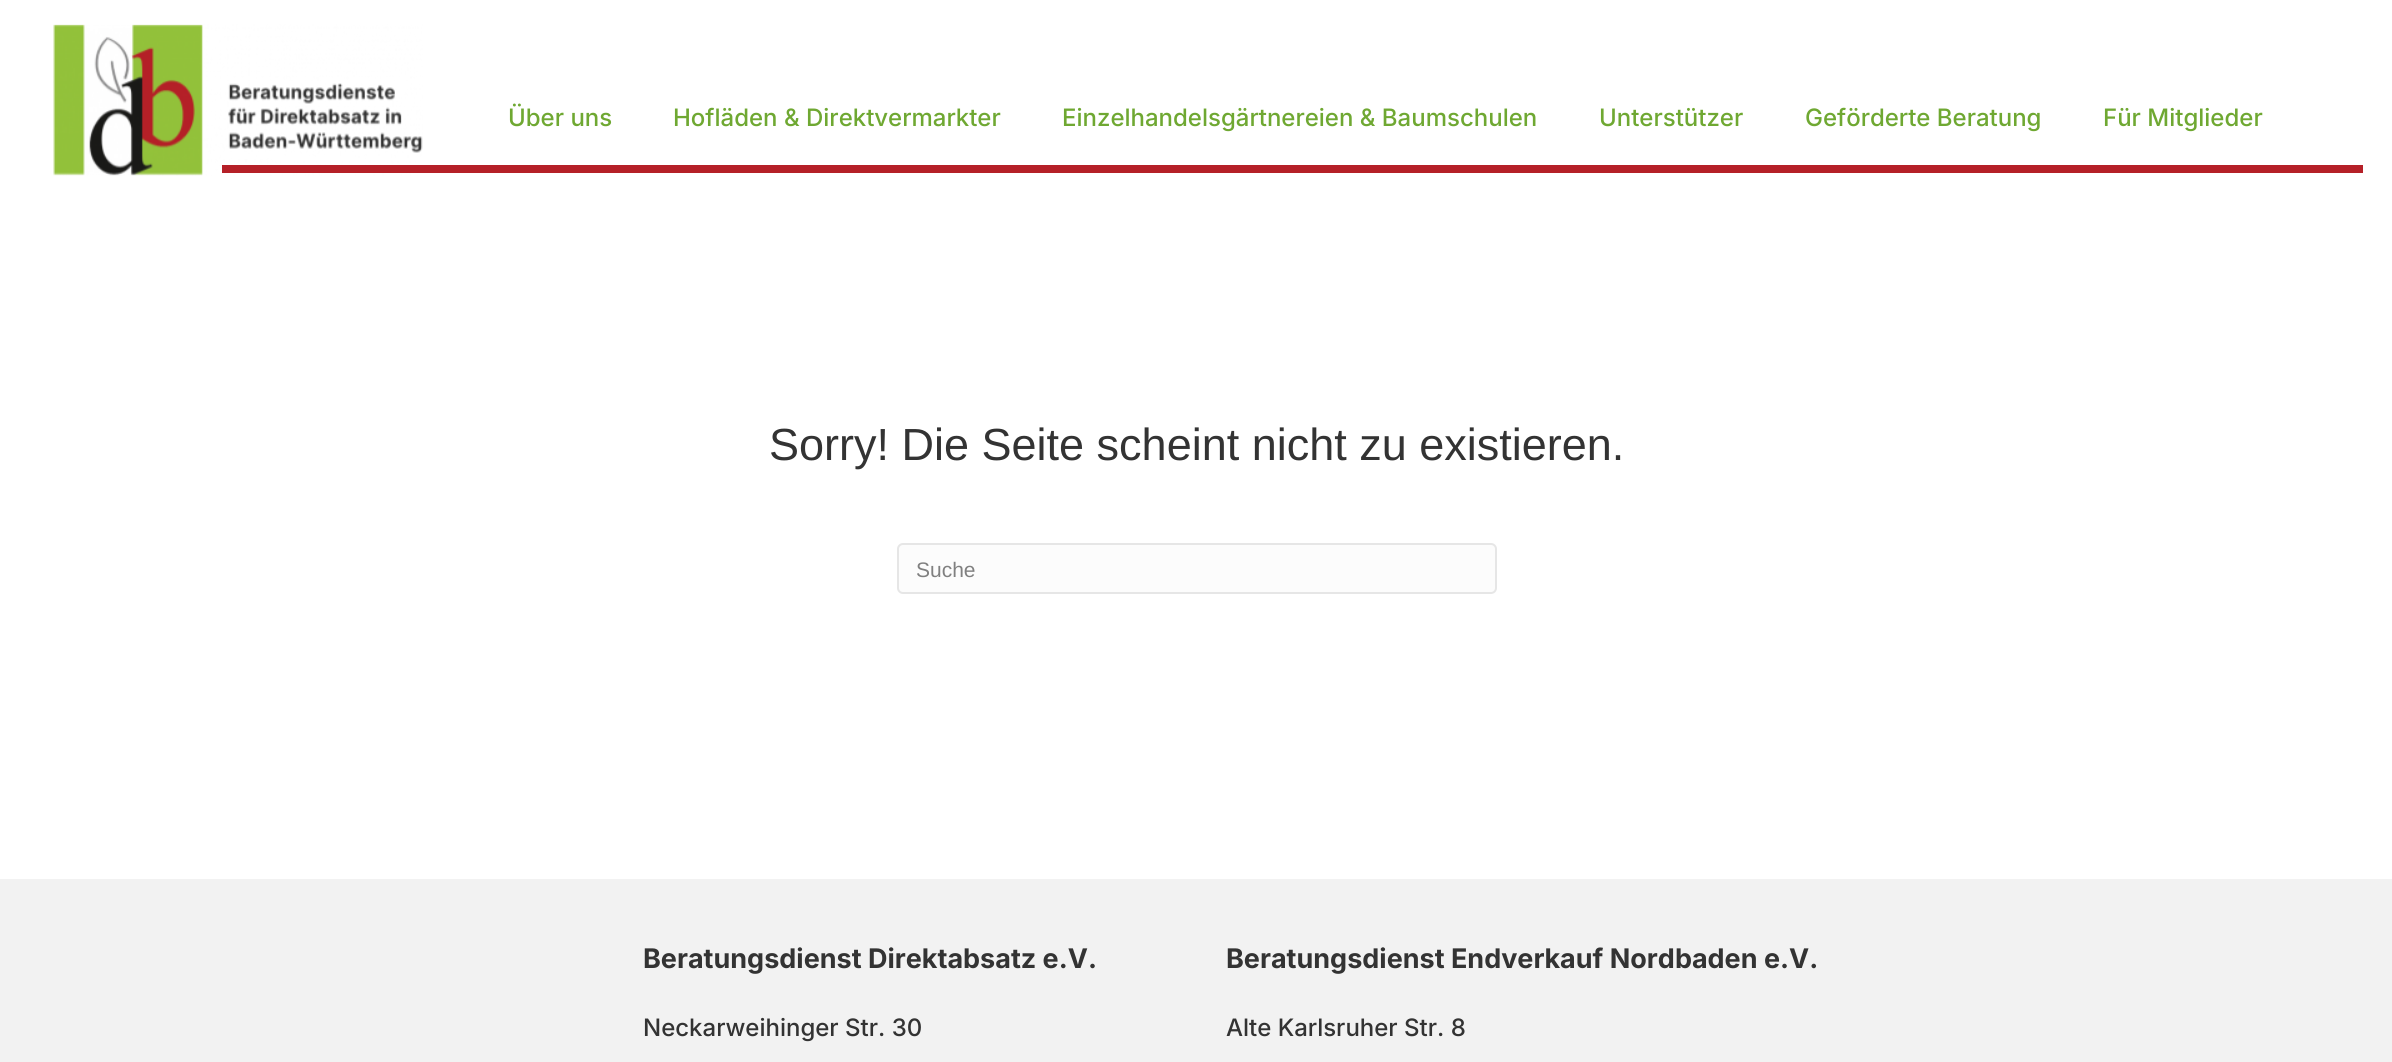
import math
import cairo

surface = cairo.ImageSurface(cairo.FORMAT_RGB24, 2392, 1062)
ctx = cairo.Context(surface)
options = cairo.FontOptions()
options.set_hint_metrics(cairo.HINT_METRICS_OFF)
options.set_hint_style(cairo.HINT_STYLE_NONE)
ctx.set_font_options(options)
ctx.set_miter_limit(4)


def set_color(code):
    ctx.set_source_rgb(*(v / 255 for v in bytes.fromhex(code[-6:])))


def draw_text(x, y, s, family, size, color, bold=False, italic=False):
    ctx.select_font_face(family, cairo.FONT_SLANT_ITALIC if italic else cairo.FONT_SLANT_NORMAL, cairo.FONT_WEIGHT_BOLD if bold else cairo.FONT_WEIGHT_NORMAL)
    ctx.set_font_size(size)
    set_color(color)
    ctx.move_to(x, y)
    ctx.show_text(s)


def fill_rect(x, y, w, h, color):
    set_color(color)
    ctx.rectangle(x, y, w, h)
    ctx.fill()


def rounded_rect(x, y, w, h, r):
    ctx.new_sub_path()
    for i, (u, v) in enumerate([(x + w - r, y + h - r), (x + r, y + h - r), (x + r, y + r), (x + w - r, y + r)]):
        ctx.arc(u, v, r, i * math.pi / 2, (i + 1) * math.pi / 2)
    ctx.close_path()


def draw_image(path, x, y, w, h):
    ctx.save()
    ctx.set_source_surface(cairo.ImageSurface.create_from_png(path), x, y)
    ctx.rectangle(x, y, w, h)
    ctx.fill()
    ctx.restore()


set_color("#f2f2f2")
ctx.paint()
fill_rect(0, 0, 2392, 879, "#ffffff")
fill_rect(222, 165, 2141, 8, "#b52028")
draw_image("assets/img1.png", 53, 24, 370, 152)
draw_text(508, 126, "Über uns", "Inter Medium", 24, "#6fa832")
draw_text(673, 126, "Hofläden & Direktvermarkter", "Inter Medium", 24, "#6fa832")
draw_text(1062, 126, "Einzelhandelsgärtnereien & Baumschulen", "Inter Medium", 24, "#6fa832")
draw_text(1599, 126, "Unterstützer", "Inter Medium", 24, "#6fa832")
draw_text(1805, 126, "Geförderte Beratung", "Inter Medium", 24, "#6fa832")
draw_text(2103, 126, "Für Mitglieder", "Inter Medium", 24, "#6fa832")
draw_text(769, 460, "Sorry! Die Seite scheint nicht zu existieren.", "Liberation Sans", 45, "#333333")
set_color("#fcfcfc")
rounded_rect(898, 544, 598, 49, 5)
ctx.fill_preserve()
set_color("#e6e6e6")
ctx.stroke()
draw_text(916, 577, "Suche", "Liberation Sans", 21, "#808080")
draw_text(643, 968, "Beratungsdienst Direktabsatz e.V.", "Inter", 27, "#333333", bold=True)
draw_text(643, 1036, "Neckarweihinger Str. 30", "Inter Medium", 24, "#333333")
draw_text(1226, 968, "Beratungsdienst Endverkauf Nordbaden e.V.", "Inter", 27, "#333333", bold=True)
draw_text(1226, 1036, "Alte Karlsruher Str. 8", "Inter Medium", 24, "#333333")
surface.write_to_png("output.png")
